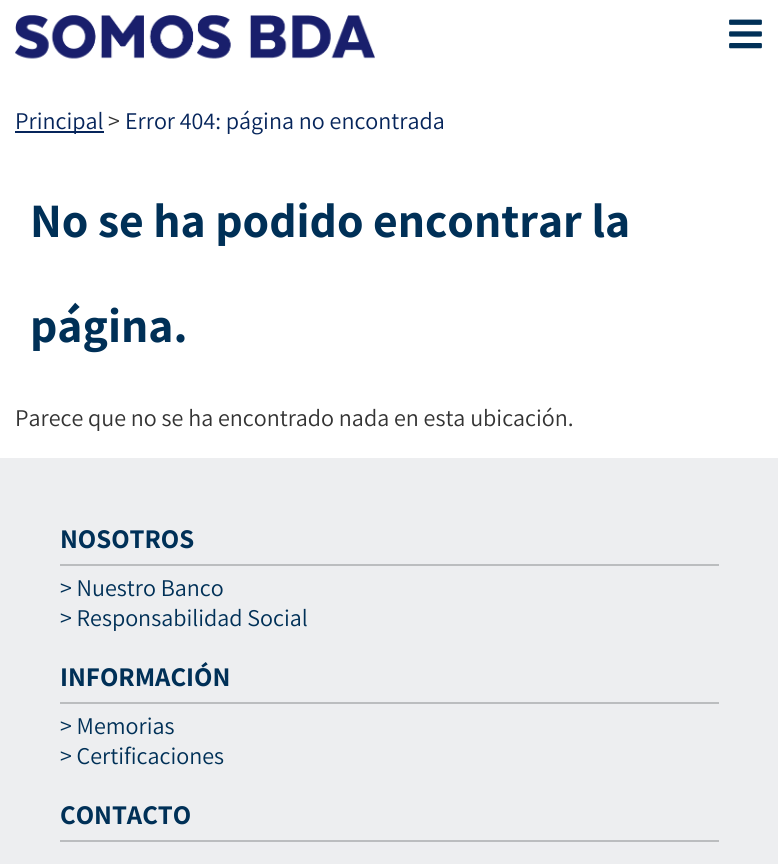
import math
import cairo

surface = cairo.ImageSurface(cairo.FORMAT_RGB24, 778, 864)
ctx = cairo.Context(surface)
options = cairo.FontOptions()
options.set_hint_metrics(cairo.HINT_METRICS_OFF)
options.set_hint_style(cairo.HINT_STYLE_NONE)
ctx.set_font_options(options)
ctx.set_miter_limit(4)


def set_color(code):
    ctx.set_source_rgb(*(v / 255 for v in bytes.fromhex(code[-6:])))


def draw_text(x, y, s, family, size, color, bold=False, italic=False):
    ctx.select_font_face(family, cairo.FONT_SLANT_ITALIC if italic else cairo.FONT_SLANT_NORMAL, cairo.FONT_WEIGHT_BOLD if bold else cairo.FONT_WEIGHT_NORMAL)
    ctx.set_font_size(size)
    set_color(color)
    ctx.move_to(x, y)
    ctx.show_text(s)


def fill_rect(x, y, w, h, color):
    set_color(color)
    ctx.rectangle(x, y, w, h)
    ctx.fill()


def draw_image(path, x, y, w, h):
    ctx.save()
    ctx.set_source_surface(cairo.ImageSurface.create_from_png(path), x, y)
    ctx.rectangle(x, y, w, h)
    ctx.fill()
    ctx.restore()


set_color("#ffffff")
ctx.paint()
draw_image("assets/img1.png", 15, 15, 360, 44)
draw_image("assets/img2.png", 729, 19, 33, 30)
fill_rect(15, 131, 89, 2, "#06255b")
draw_text(15, 129, "Principal", "Assistant", 24, "#06255b")
draw_text(108, 129, ">", "Assistant", 24, "#333333")
draw_text(125, 129, "Error 404: página no encontrada", "Assistant", 24, "#06255b")
draw_text(30, 237, "No se ha podido encontrar la", "Assistant", 48, "#003057", bold=True)
draw_text(30, 342, "página.", "Assistant", 48, "#003057", bold=True)
draw_text(15, 426, "Parece que no se ha encontrado nada en esta ubicación.", "Assistant", 24, "#333333")
fill_rect(0, 458, 778, 406, "#edeef0")
fill_rect(60, 564, 659, 2, "#bbbdbf")
draw_text(60, 548, "NOSOTROS", "Assistant", 27, "#003057", bold=True)
draw_text(60, 596, "> Nuestro Banco", "Assistant", 24, "#003057")
draw_text(60, 626, "> Responsabilidad Social", "Assistant", 24, "#003057")
fill_rect(60, 702, 659, 2, "#bbbdbf")
draw_text(60, 686, "INFORMACIÓN", "Assistant", 27, "#003057", bold=True)
draw_text(60, 734, "> Memorias", "Assistant", 24, "#003057")
draw_text(60, 764, "> Certificaciones", "Assistant", 24, "#003057")
fill_rect(60, 840, 659, 2, "#bbbdbf")
draw_text(60, 824, "CONTACTO", "Assistant", 27, "#003057", bold=True)
surface.write_to_png("output.png")
